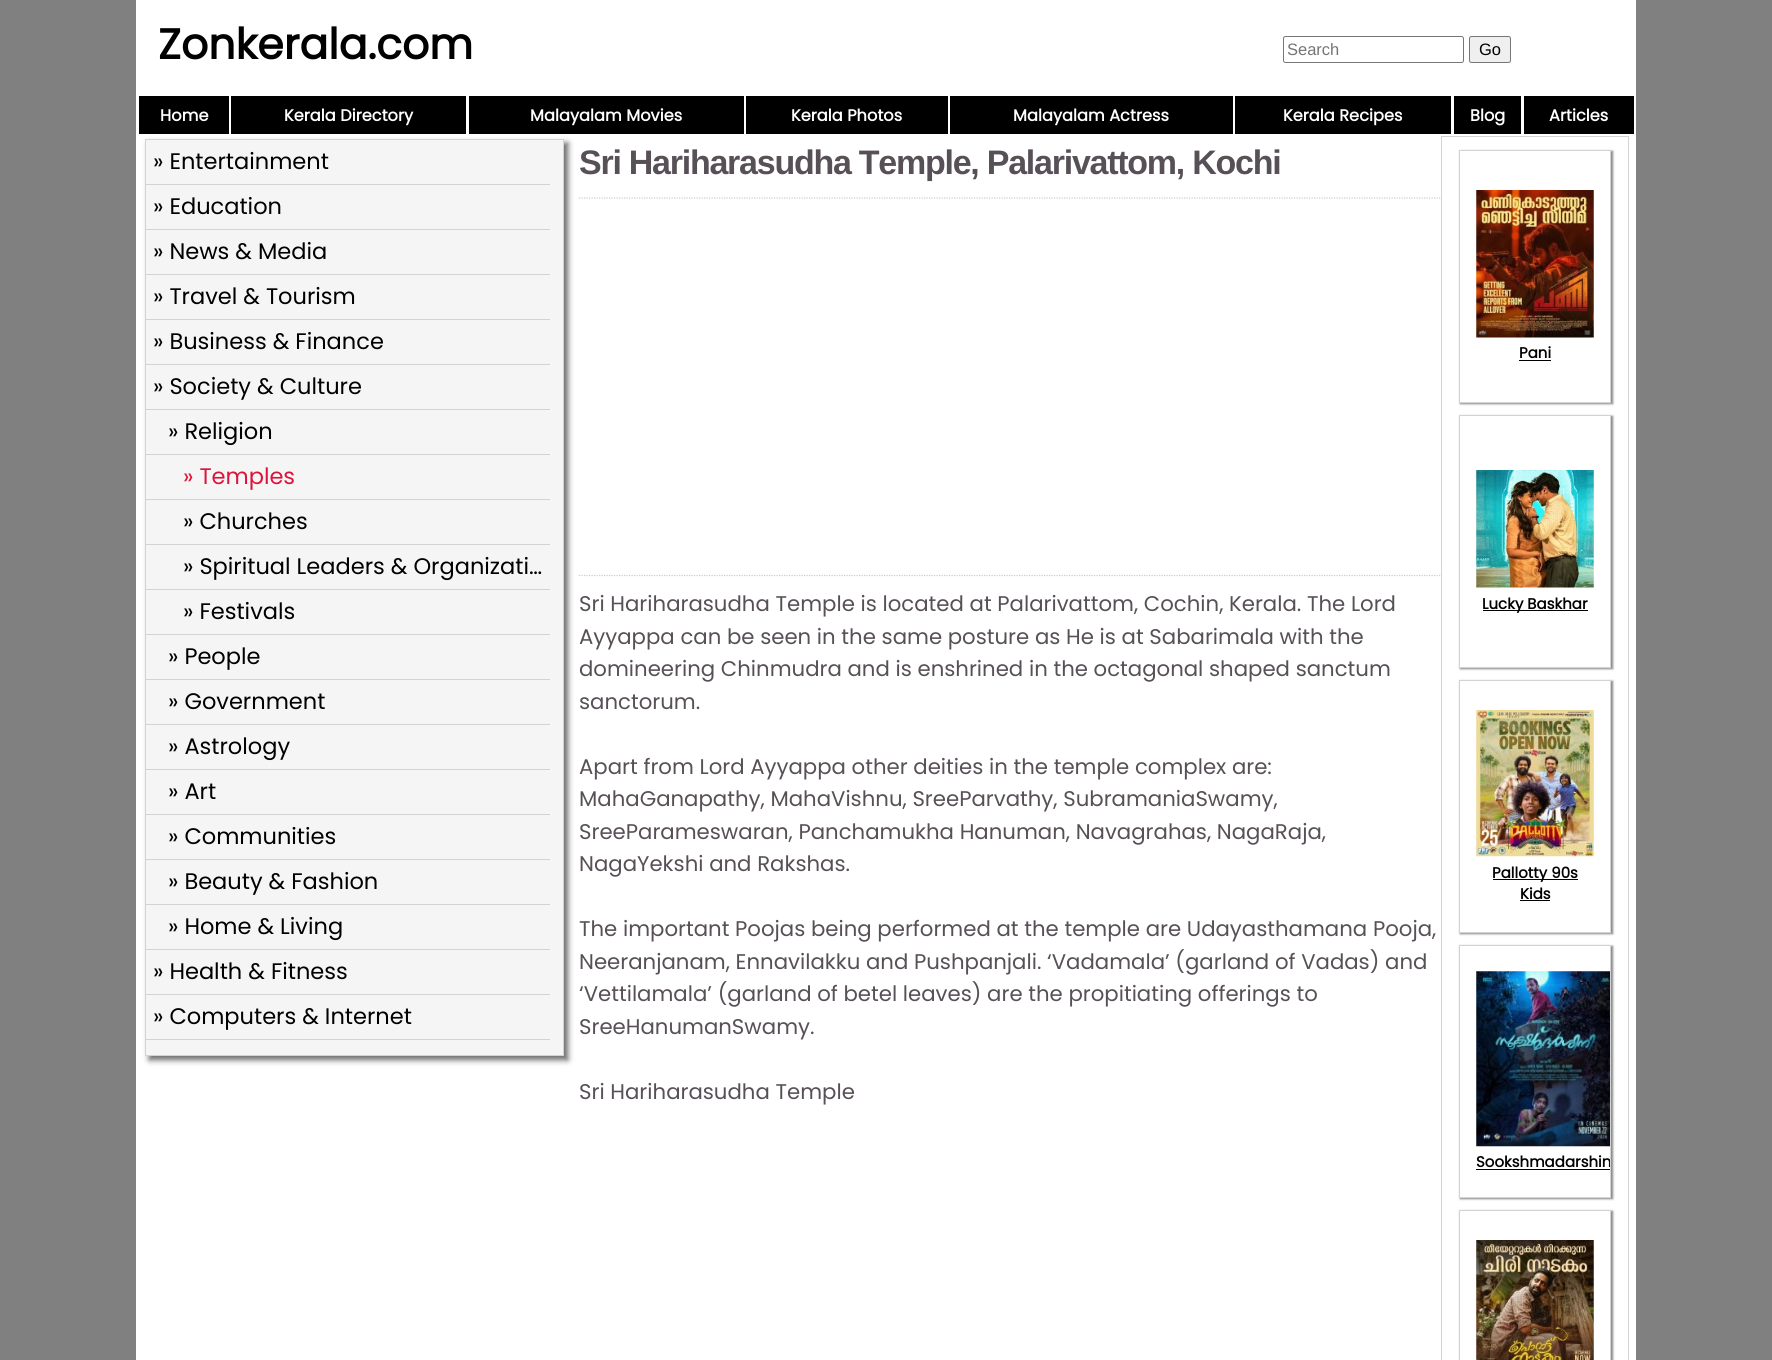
import math
import cairo

surface = cairo.ImageSurface(cairo.FORMAT_RGB24, 1772, 1360)
ctx = cairo.Context(surface)
options = cairo.FontOptions()
options.set_hint_metrics(cairo.HINT_METRICS_OFF)
options.set_hint_style(cairo.HINT_STYLE_NONE)
ctx.set_font_options(options)
ctx.set_miter_limit(4)


def set_color(code):
    ctx.set_source_rgb(*(v / 255 for v in bytes.fromhex(code[-6:])))


def draw_text(x, y, s, family, size, color, bold=False, italic=False):
    ctx.select_font_face(family, cairo.FONT_SLANT_ITALIC if italic else cairo.FONT_SLANT_NORMAL, cairo.FONT_WEIGHT_BOLD if bold else cairo.FONT_WEIGHT_NORMAL)
    ctx.set_font_size(size)
    set_color(color)
    ctx.move_to(x, y)
    ctx.show_text(s)


def draw_spaced(x, y, s, letter, word):
    ctx.move_to(x, y)
    for ch in s:
        ctx.show_text(ch)
        ctx.rel_move_to(letter + word * (ch == ' '), 0)


def fill_rect(x, y, w, h, color):
    set_color(color)
    ctx.rectangle(x, y, w, h)
    ctx.fill()


def rounded_rect(x, y, w, h, r):
    ctx.new_sub_path()
    for i, (u, v) in enumerate([(x + w - r, y + h - r), (x + r, y + h - r), (x + r, y + r), (x + w - r, y + r)]):
        ctx.arc(u, v, r, i * math.pi / 2, (i + 1) * math.pi / 2)
    ctx.close_path()


def draw_shadow(x, y, w, h, r, blur, alpha):
    ctx.push_group_with_content(cairo.CONTENT_ALPHA)
    ctx.set_operator(cairo.OPERATOR_SOURCE)
    for i in range(15, -16, -2):
        e = blur * i / 6
        if min(w, h) + 2 * e > 0:
            ctx.set_source_rgba(0, 0, 0, alpha * math.erfc((i - 1) / 8.5) / 2)
            rounded_rect(x - e, y - e, w + 2 * e, h + 2 * e, max(0, min(r + e + blur * .6, min(w, h) / 2 + e)))
            ctx.fill()
    ctx.mask(ctx.pop_group())


def draw_image(path, x, y, w, h):
    ctx.save()
    ctx.set_source_surface(cairo.ImageSurface.create_from_png(path), x, y)
    ctx.rectangle(x, y, w, h)
    ctx.fill()
    ctx.restore()


set_color("#808080")
ctx.paint()
fill_rect(136, 0, 1500, 1360, "#ffffff")
draw_text(158, 59, "Zonkerala.com", "Poppins", 42.5, "#000000", bold=True)
rounded_rect(1283.5, 36.5, 180, 26, 2)
set_color("#767676")
ctx.set_line_width(1)
ctx.stroke()
draw_text(1287, 55, "Search", "Liberation Sans", 16.5, "#757575")
set_color("#efefef")
rounded_rect(1469.5, 36.5, 41, 26, 2)
ctx.fill_preserve()
set_color("#767676")
ctx.stroke()
draw_text(1479, 55, "Go", "Liberation Sans", 16.5, "#000000")
fill_rect(139, 96, 90, 38, "#000000")
draw_text(160, 121, "Home", "Poppins", 16.25, "#ffffff", bold=True)
fill_rect(231, 96, 235, 38, "#000000")
draw_text(284, 121, "Kerala Directory", "Poppins", 16.25, "#ffffff", bold=True)
fill_rect(469, 96, 275, 38, "#000000")
draw_text(530, 121, "Malayalam Movies", "Poppins", 16.25, "#ffffff", bold=True)
fill_rect(746, 96, 202, 38, "#000000")
draw_text(791, 121, "Kerala Photos", "Poppins", 16.25, "#ffffff", bold=True)
fill_rect(950, 96, 283, 38, "#000000")
draw_text(1013, 121, "Malayalam Actress", "Poppins", 16.25, "#ffffff", bold=True)
fill_rect(1235, 96, 216, 38, "#000000")
draw_text(1283, 121, "Kerala Recipes", "Poppins", 16.25, "#ffffff", bold=True)
fill_rect(1454, 96, 67, 38, "#000000")
draw_text(1470, 121, "Blog", "Poppins", 16.25, "#ffffff", bold=True)
fill_rect(1524, 96, 110, 38, "#000000")
draw_text(1549, 121, "Articles", "Poppins", 16.25, "#ffffff", bold=True)
set_color("#696969")
draw_shadow(149, 143, 419, 917, 0, 3, 1)
set_color("#f5f5f5")
ctx.rectangle(145.5, 139.5, 418, 916)
ctx.fill_preserve()
set_color("#d3d3d3")
ctx.stroke()
fill_rect(146, 184, 404, 1, "#d3d3d3")
draw_text(153, 169, "» Entertainment", "Poppins", 22.5, "#000000")
fill_rect(146, 229, 404, 1, "#d3d3d3")
draw_text(153, 214, "» Education", "Poppins", 22.5, "#000000")
fill_rect(146, 274, 404, 1, "#d3d3d3")
draw_text(153, 259, "» News & Media", "Poppins", 22.5, "#000000")
fill_rect(146, 319, 404, 1, "#d3d3d3")
draw_text(153, 304, "» Travel & Tourism", "Poppins", 22.5, "#000000")
fill_rect(146, 364, 404, 1, "#d3d3d3")
draw_text(153, 349, "» Business & Finance", "Poppins", 22.5, "#000000")
fill_rect(146, 409, 404, 1, "#d3d3d3")
draw_text(153, 394, "» Society & Culture", "Poppins", 22.5, "#000000")
fill_rect(146, 454, 404, 1, "#d3d3d3")
draw_text(168, 439, "» Religion", "Poppins", 22.5, "#000000")
fill_rect(146, 499, 404, 1, "#d3d3d3")
draw_text(183, 484, "» Temples", "Poppins", 22.5, "#dc143c")
fill_rect(146, 544, 404, 1, "#d3d3d3")
draw_text(183, 529, "» Churches", "Poppins", 22.5, "#000000")
fill_rect(146, 589, 404, 1, "#d3d3d3")
draw_text(183, 574, "» Spiritual Leaders & Organizati…", "Poppins", 22.5, "#000000")
fill_rect(146, 634, 404, 1, "#d3d3d3")
draw_text(183, 619, "» Festivals", "Poppins", 22.5, "#000000")
fill_rect(146, 679, 404, 1, "#d3d3d3")
draw_text(168, 664, "» People", "Poppins", 22.5, "#000000")
fill_rect(146, 724, 404, 1, "#d3d3d3")
draw_text(168, 709, "» Government", "Poppins", 22.5, "#000000")
fill_rect(146, 769, 404, 1, "#d3d3d3")
draw_text(168, 754, "» Astrology", "Poppins", 22.5, "#000000")
fill_rect(146, 814, 404, 1, "#d3d3d3")
draw_text(168, 799, "» Art", "Poppins", 22.5, "#000000")
fill_rect(146, 859, 404, 1, "#d3d3d3")
draw_text(168, 844, "» Communities", "Poppins", 22.5, "#000000")
fill_rect(146, 904, 404, 1, "#d3d3d3")
draw_text(168, 889, "» Beauty & Fashion", "Poppins", 22.5, "#000000")
fill_rect(146, 949, 404, 1, "#d3d3d3")
draw_text(168, 934, "» Home & Living", "Poppins", 22.5, "#000000")
fill_rect(146, 994, 404, 1, "#d3d3d3")
draw_text(153, 979, "» Health & Fitness", "Poppins", 22.5, "#000000")
fill_rect(146, 1039, 404, 1, "#d3d3d3")
draw_text(153, 1024, "» Computers & Internet", "Poppins", 22.5, "#000000")
ctx.select_font_face("Liberation Sans", cairo.FONT_SLANT_NORMAL, cairo.FONT_WEIGHT_BOLD)
ctx.set_font_size(34)
set_color("#575057")
draw_spaced(579, 174, "Sri Hariharasudha Temple, Palarivattom, Kochi", -1.25, 0)
ctx.new_path()
ctx.move_to(579, 198)
ctx.line_to(1441, 198)
set_color("#cccccc")
ctx.set_line_width(1.2)
ctx.set_dash([1.25, 1.25])
ctx.stroke()
ctx.new_path()
ctx.move_to(579, 575.5)
ctx.line_to(1441, 575.5)
ctx.stroke()
draw_text(579, 611, "Sri Hariharasudha Temple is located at Palarivattom, Cochin, Kerala. The Lord", "Poppins", 21.25, "#575057")
draw_text(579, 644, "Ayyappa can be seen in the same posture as He is at Sabarimala with the", "Poppins", 21.25, "#575057")
draw_text(579, 676, "domineering Chinmudra and is enshrined in the octagonal shaped sanctum", "Poppins", 21.25, "#575057")
draw_text(579, 709, "sanctorum.", "Poppins", 21.25, "#575057")
draw_text(579, 774, "Apart from Lord Ayyappa other deities in the temple complex are:", "Poppins", 21.25, "#575057")
draw_text(579, 806, "MahaGanapathy, MahaVishnu, SreeParvathy, SubramaniaSwamy,", "Poppins", 21.25, "#575057")
draw_text(579, 839, "SreeParameswaran, Panchamukha Hanuman, Navagrahas, NagaRaja,", "Poppins", 21.25, "#575057")
draw_text(579, 871, "NagaYekshi and Rakshas.", "Poppins", 21.25, "#575057")
draw_text(579, 936, "The important Poojas being performed at the temple are Udayasthamana Pooja,", "Poppins", 21.25, "#575057")
draw_text(579, 969, "Neeranjanam, Ennavilakku and Pushpanjali. ‘Vadamala’ (garland of Vadas) and", "Poppins", 21.25, "#575057")
draw_text(579, 1001, "‘Vettilamala’ (garland of betel leaves) are the propitiating offerings to", "Poppins", 21.25, "#575057")
draw_text(579, 1034, "SreeHanumanSwamy.", "Poppins", 21.25, "#575057")
draw_text(579, 1099, "Sri Hariharasudha Temple", "Poppins", 21.25, "#575057")
ctx.rectangle(1441.5, 136.5, 187, 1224)
set_color("#d3d3d3")
ctx.set_line_width(1)
ctx.set_dash([])
ctx.stroke()
set_color("#888888")
draw_shadow(1460, 151, 153, 253, 0, 1, 1)
set_color("#ffffff")
ctx.rectangle(1459.5, 150.5, 151, 252)
ctx.fill_preserve()
set_color("#d3d3d3")
ctx.stroke()
draw_image("assets/img1.png", 1476, 190, 118, 148)
draw_text(1519, 358, "Pani", "Poppins", 15, "#000000", bold=True)
fill_rect(1519, 360, 32, 1, "#000000")
set_color("#888888")
draw_shadow(1460, 416, 153, 253, 0, 1, 1)
set_color("#ffffff")
ctx.rectangle(1459.5, 415.5, 151, 252)
ctx.fill_preserve()
set_color("#d3d3d3")
ctx.stroke()
draw_image("assets/img2.png", 1476, 470, 118, 118)
fill_rect(1483, 610, 105, 1, "#000000")
draw_text(1482, 609, "Lucky Baskhar", "Poppins", 15, "#000000", bold=True)
set_color("#888888")
draw_shadow(1460, 681, 153, 253, 0, 1, 1)
set_color("#ffffff")
ctx.rectangle(1459.5, 680.5, 151, 252)
ctx.fill_preserve()
set_color("#d3d3d3")
ctx.stroke()
draw_image("assets/img3.png", 1476, 710, 118, 147)
fill_rect(1493, 879, 85, 1, "#000000")
draw_text(1492, 878, "Pallotty 90s", "Poppins", 15, "#000000", bold=True)
draw_text(1520, 899, "Kids", "Poppins", 15, "#000000", bold=True)
fill_rect(1520, 900, 30, 1, "#000000")
set_color("#888888")
draw_shadow(1460, 946, 153, 253, 0, 1, 1)
set_color("#ffffff")
ctx.rectangle(1459.5, 945.5, 151, 252)
ctx.fill_preserve()
set_color("#d3d3d3")
ctx.stroke()
draw_image("assets/img4.png", 1476, 971, 134, 176)
ctx.save()
ctx.rectangle(1475, 961, 135, 220)
ctx.clip()
draw_text(1476, 1167, "Sookshmadarshin", "Poppins", 15, "#000000", bold=True)
ctx.restore()
fill_rect(1476, 1169, 134, 1, "#000000")
ctx.save()
ctx.set_fill_rule(cairo.FILL_RULE_EVEN_ODD)
ctx.new_path()
ctx.move_to(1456, 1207)
ctx.line_to(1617, 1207)
ctx.line_to(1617, 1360)
ctx.line_to(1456, 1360)
ctx.close_path()
ctx.move_to(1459, 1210)
ctx.line_to(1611, 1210)
ctx.line_to(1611, 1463)
ctx.line_to(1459, 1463)
ctx.close_path()
ctx.clip()
set_color("#888888")
draw_shadow(1460, 1211, 153, 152, 0, 1, 1)
ctx.restore()
ctx.rectangle(1459.5, 1210.5, 151, 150)
set_color("#d3d3d3")
ctx.stroke()
draw_image("assets/img5.png", 1476, 1240, 118, 120)
surface.write_to_png("output.png")
